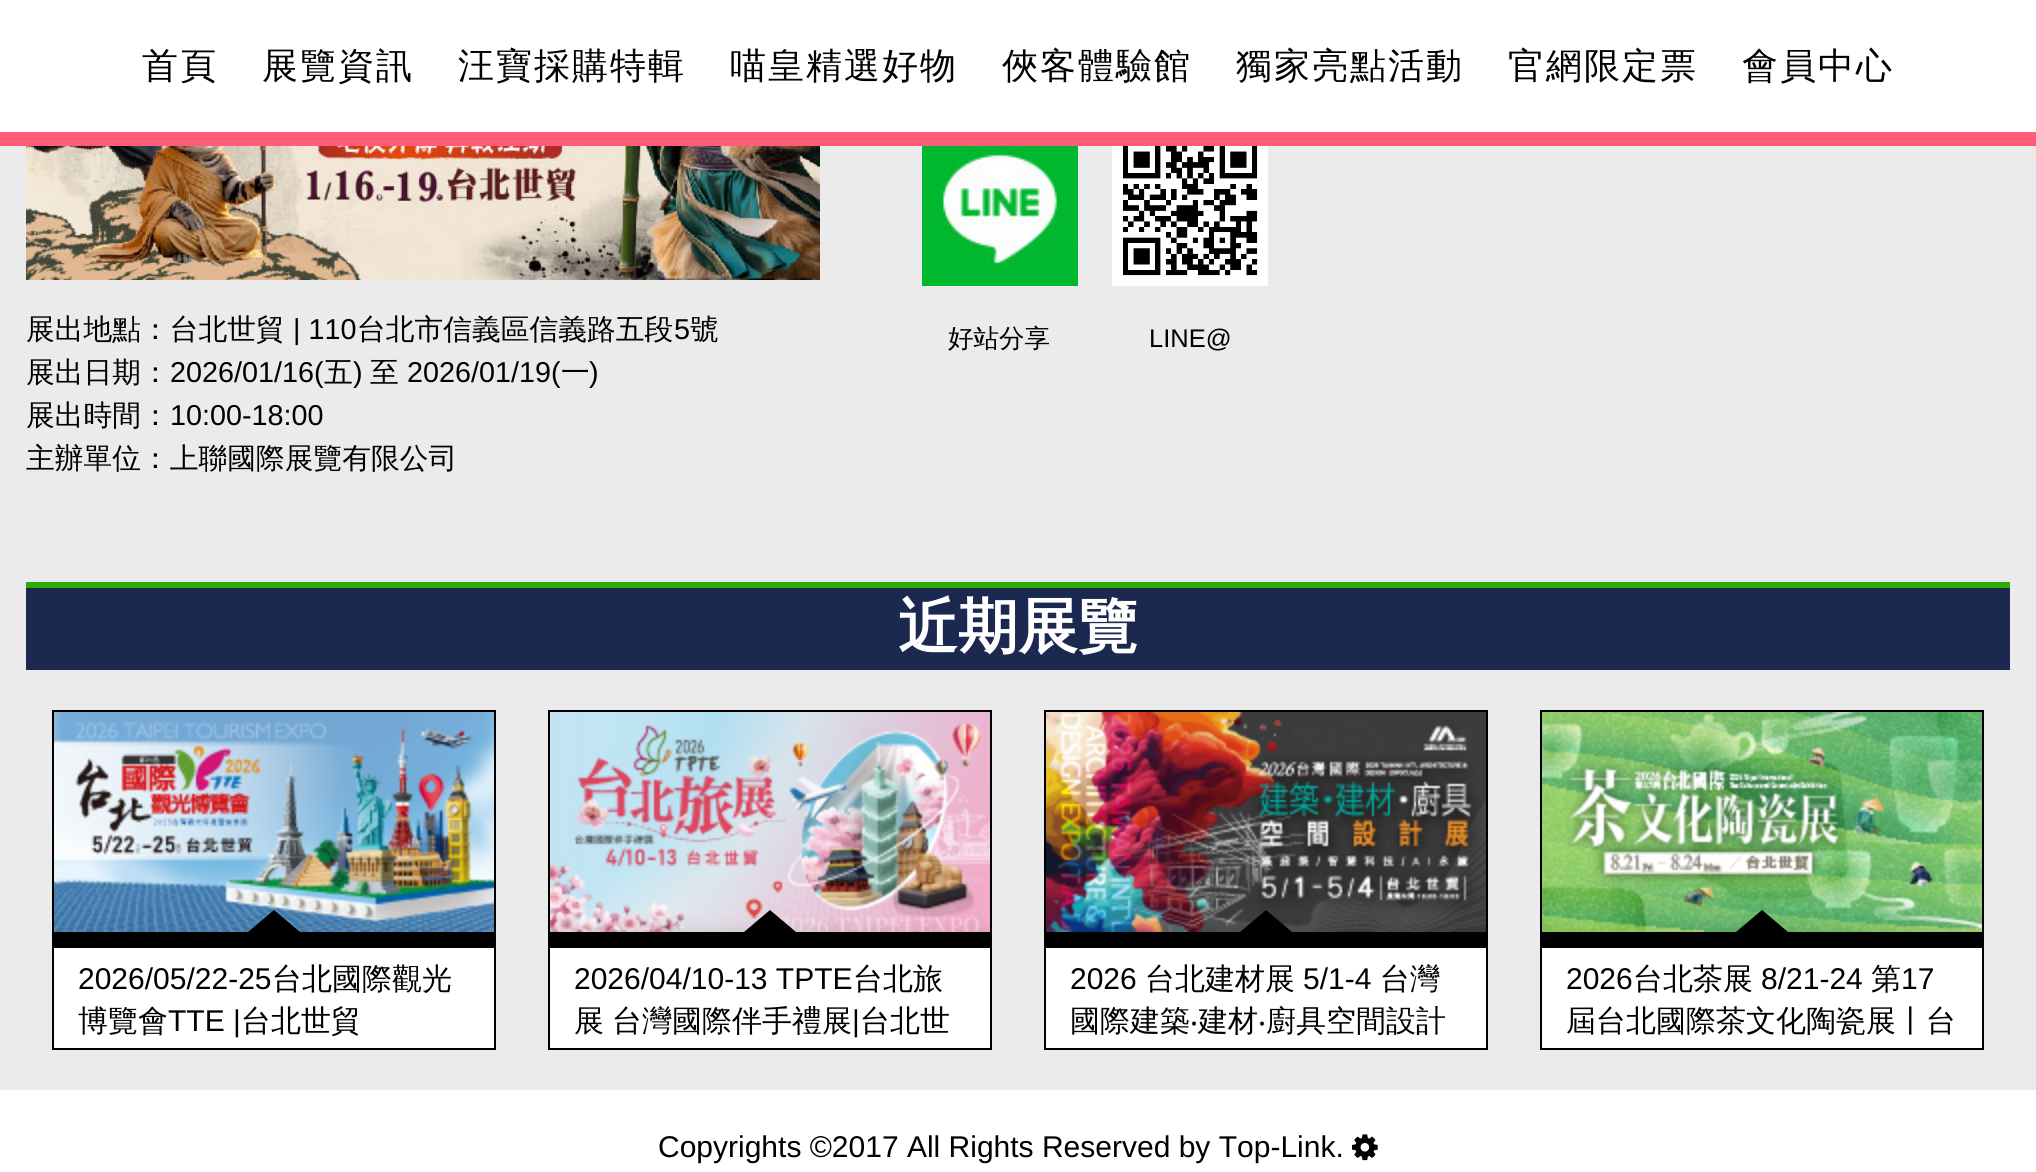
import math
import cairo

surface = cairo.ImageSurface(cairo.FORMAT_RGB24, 2036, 1172)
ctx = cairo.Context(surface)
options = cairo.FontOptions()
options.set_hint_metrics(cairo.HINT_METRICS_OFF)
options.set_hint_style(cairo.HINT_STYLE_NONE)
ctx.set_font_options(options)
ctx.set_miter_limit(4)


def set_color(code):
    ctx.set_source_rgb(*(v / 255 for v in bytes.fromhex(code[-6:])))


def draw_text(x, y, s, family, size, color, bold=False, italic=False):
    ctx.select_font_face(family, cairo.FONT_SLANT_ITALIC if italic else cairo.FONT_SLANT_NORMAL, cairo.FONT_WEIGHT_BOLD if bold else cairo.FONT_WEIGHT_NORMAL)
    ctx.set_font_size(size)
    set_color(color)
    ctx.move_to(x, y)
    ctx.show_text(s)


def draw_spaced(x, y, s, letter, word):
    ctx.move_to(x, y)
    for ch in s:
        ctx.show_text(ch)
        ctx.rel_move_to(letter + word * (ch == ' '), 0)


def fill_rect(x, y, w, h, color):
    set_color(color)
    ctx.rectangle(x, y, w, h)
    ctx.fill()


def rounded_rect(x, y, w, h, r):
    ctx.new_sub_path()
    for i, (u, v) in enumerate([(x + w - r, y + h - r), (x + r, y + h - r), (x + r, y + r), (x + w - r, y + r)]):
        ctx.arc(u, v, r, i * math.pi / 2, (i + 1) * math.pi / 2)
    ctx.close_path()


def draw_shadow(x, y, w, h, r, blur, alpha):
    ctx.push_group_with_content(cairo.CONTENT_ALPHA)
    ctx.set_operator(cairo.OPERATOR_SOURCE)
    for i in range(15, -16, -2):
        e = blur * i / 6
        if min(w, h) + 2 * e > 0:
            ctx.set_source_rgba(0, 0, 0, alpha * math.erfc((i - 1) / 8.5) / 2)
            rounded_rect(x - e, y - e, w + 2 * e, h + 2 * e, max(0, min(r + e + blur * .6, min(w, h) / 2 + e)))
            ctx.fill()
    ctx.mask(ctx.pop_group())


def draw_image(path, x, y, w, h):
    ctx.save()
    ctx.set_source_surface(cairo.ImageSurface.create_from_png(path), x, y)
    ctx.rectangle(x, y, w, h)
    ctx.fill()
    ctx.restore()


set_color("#ffffff")
ctx.paint()
fill_rect(0, 132, 2036, 14, "#ff5c79")
ctx.select_font_face("WenQuanYi Zen Hei Medium")
ctx.set_font_size(36)
set_color("#000000")
draw_spaced(142, 78, "首頁", 2, 0)
draw_spaced(262, 78, "展覽資訊", 2, 0)
draw_spaced(458, 78, "汪寶採購特輯", 2, 0)
draw_spaced(730, 78, "喵皇精選好物", 2, 0)
draw_spaced(1002, 78, "俠客體驗館", 2, 0)
draw_spaced(1236, 78, "獨家亮點活動", 2, 0)
draw_spaced(1508, 78, "官網限定票", 2, 0)
draw_spaced(1742, 78, "會員中心", 2, 0)
fill_rect(0, 146, 2036, 944, "#ebebeb")
draw_image("assets/img1.png", 26, 146, 794, 134)
draw_text(26, 339, "展出地點：台北世貿", "WenQuanYi Zen Hei Medium", 28.75, "#000000")
draw_text(293, 339, "| 110", "Liberation Sans", 28.75, "#000000")
draw_text(357, 339, "台北市信義區信義路五段", "WenQuanYi Zen Hei Medium", 28.75, "#000000")
draw_text(674, 339, "5", "Liberation Sans", 28.75, "#000000")
draw_text(690, 339, "號", "WenQuanYi Zen Hei Medium", 28.75, "#000000")
draw_text(26, 382, "展出日期：", "WenQuanYi Zen Hei Medium", 28.75, "#000000")
draw_text(170, 382, "2026/01/16(", "Liberation Sans", 28.75, "#000000")
draw_text(324, 382, "五", "WenQuanYi Zen Hei Medium", 28.75, "#000000")
draw_text(353, 382, ")", "Liberation Sans", 28.75, "#000000")
draw_text(370, 382, "至", "WenQuanYi Zen Hei Medium", 28.75, "#000000")
draw_text(407, 382, "2026/01/19(", "Liberation Sans", 28.75, "#000000")
draw_text(561, 382, "一", "WenQuanYi Zen Hei Medium", 28.75, "#000000")
draw_text(589, 382, ")", "Liberation Sans", 28.75, "#000000")
draw_text(26, 425, "展出時間：", "WenQuanYi Zen Hei Medium", 28.75, "#000000")
draw_text(170, 425, "10:00-18:00", "Liberation Sans", 28.75, "#000000")
draw_text(26, 468, "主辦單位：上聯國際展覽有限公司", "WenQuanYi Zen Hei Medium", 28.75, "#000000")
draw_image("assets/img2.png", 922, 146, 156, 140)
draw_text(948, 347, "好站分享", "WenQuanYi Zen Hei Medium", 25.5, "#000000")
draw_image("assets/img3.png", 1112, 146, 156, 140)
draw_text(1149, 347, "LINE@", "Liberation Sans", 25.5, "#000000")
fill_rect(26, 582, 1984, 6, "#2bad07")
fill_rect(26, 588, 1984, 82, "#1b284f")
draw_text(898, 647, "近期展覽", "WenQuanYi Zen Hei", 60, "#ffffff", bold=True)
ctx.rectangle(53, 711, 442, 338)
set_color("#000000")
ctx.stroke()
draw_image("assets/img4.png", 54, 712, 440, 220)
ctx.save()
ctx.rectangle(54, 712, 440, 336)
ctx.clip()
set_color("#000000")
draw_shadow(54, 936, 440, 116, 0, 10, 0.2)
ctx.restore()
fill_rect(54, 948, 440, 100, "#ffffff")
fill_rect(54, 932, 440, 16, "#000000")
ctx.new_path()
ctx.move_to(300, 932)
ctx.line_to(248, 932)
ctx.line_to(274, 910)
ctx.close_path()
ctx.fill()
draw_text(78, 989, "2026/05/22-25", "Liberation Sans", 30, "#000000")
draw_text(272, 989, "台北國際觀光", "WenQuanYi Zen Hei Medium", 30, "#000000")
draw_text(78, 1031, "博覽會", "WenQuanYi Zen Hei Medium", 30, "#000000")
draw_text(168, 1031, "TTE |", "Liberation Sans", 30, "#000000")
draw_text(241, 1031, "台北世貿", "WenQuanYi Zen Hei Medium", 30, "#000000")
ctx.rectangle(549, 711, 442, 338)
ctx.stroke()
draw_image("assets/img5.png", 550, 712, 440, 220)
ctx.save()
ctx.rectangle(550, 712, 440, 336)
ctx.clip()
set_color("#000000")
draw_shadow(550, 936, 440, 116, 0, 10, 0.2)
ctx.restore()
fill_rect(550, 948, 440, 100, "#ffffff")
fill_rect(550, 932, 440, 16, "#000000")
ctx.new_path()
ctx.move_to(796, 932)
ctx.line_to(744, 932)
ctx.line_to(770, 910)
ctx.close_path()
ctx.fill()
draw_text(574, 989, "2026/04/10-13 TPTE", "Liberation Sans", 30, "#000000")
draw_text(853, 989, "台北旅", "WenQuanYi Zen Hei Medium", 30, "#000000")
draw_spaced(574, 1031, "展 台灣國際伴手禮展", 0, -1)
draw_text(852, 1031, "|", "Liberation Sans", 30, "#000000")
draw_text(860, 1031, "台北世", "WenQuanYi Zen Hei Medium", 30, "#000000")
ctx.rectangle(1045, 711, 442, 338)
ctx.stroke()
draw_image("assets/img6.png", 1046, 712, 440, 220)
ctx.save()
ctx.rectangle(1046, 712, 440, 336)
ctx.clip()
set_color("#000000")
draw_shadow(1046, 936, 440, 116, 0, 10, 0.2)
ctx.restore()
fill_rect(1046, 948, 440, 100, "#ffffff")
fill_rect(1046, 932, 440, 16, "#000000")
ctx.new_path()
ctx.move_to(1292, 932)
ctx.line_to(1240, 932)
ctx.line_to(1266, 910)
ctx.close_path()
ctx.fill()
draw_text(1070, 989, "2026", "Liberation Sans", 30, "#000000")
draw_text(1145, 989, "台北建材展", "WenQuanYi Zen Hei Medium", 30, "#000000")
draw_text(1303, 989, "5/1-4", "Liberation Sans", 30, "#000000")
draw_text(1380, 989, "台灣", "WenQuanYi Zen Hei Medium", 30, "#000000")
draw_text(1070, 1031, "國際建築", "WenQuanYi Zen Hei Medium", 30, "#000000")
draw_text(1190, 1031, "‧", "Noto Sans", 30, "#000000")
draw_text(1198, 1031, "建材", "WenQuanYi Zen Hei Medium", 30, "#000000")
draw_text(1258, 1031, "‧", "Noto Sans", 30, "#000000")
draw_text(1266, 1031, "廚具空間設計", "WenQuanYi Zen Hei Medium", 30, "#000000")
ctx.rectangle(1541, 711, 442, 338)
ctx.stroke()
draw_image("assets/img7.png", 1542, 712, 440, 220)
ctx.save()
ctx.rectangle(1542, 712, 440, 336)
ctx.clip()
set_color("#000000")
draw_shadow(1542, 936, 440, 116, 0, 10, 0.2)
ctx.restore()
fill_rect(1542, 948, 440, 100, "#ffffff")
fill_rect(1542, 932, 440, 16, "#000000")
ctx.new_path()
ctx.move_to(1788, 932)
ctx.line_to(1736, 932)
ctx.line_to(1762, 910)
ctx.close_path()
ctx.fill()
draw_text(1566, 989, "2026", "Liberation Sans", 30, "#000000")
draw_text(1633, 989, "台北茶展", "WenQuanYi Zen Hei Medium", 30, "#000000")
draw_text(1761, 989, "8/21-24", "Liberation Sans", 30, "#000000")
draw_text(1871, 989, "第", "WenQuanYi Zen Hei Medium", 30, "#000000")
draw_text(1901, 989, "17", "Liberation Sans", 30, "#000000")
draw_text(1566, 1031, "屆台北國際茶文化陶瓷展丨台", "WenQuanYi Zen Hei Medium", 30, "#000000")
draw_text(658, 1157, "Copyrights ©2017 All Rights Reserved by Top-Link.", "Liberation Sans", 30, "#000000")
draw_image("assets/img8.png", 1352, 1134, 26, 27)
surface.write_to_png("output.png")
